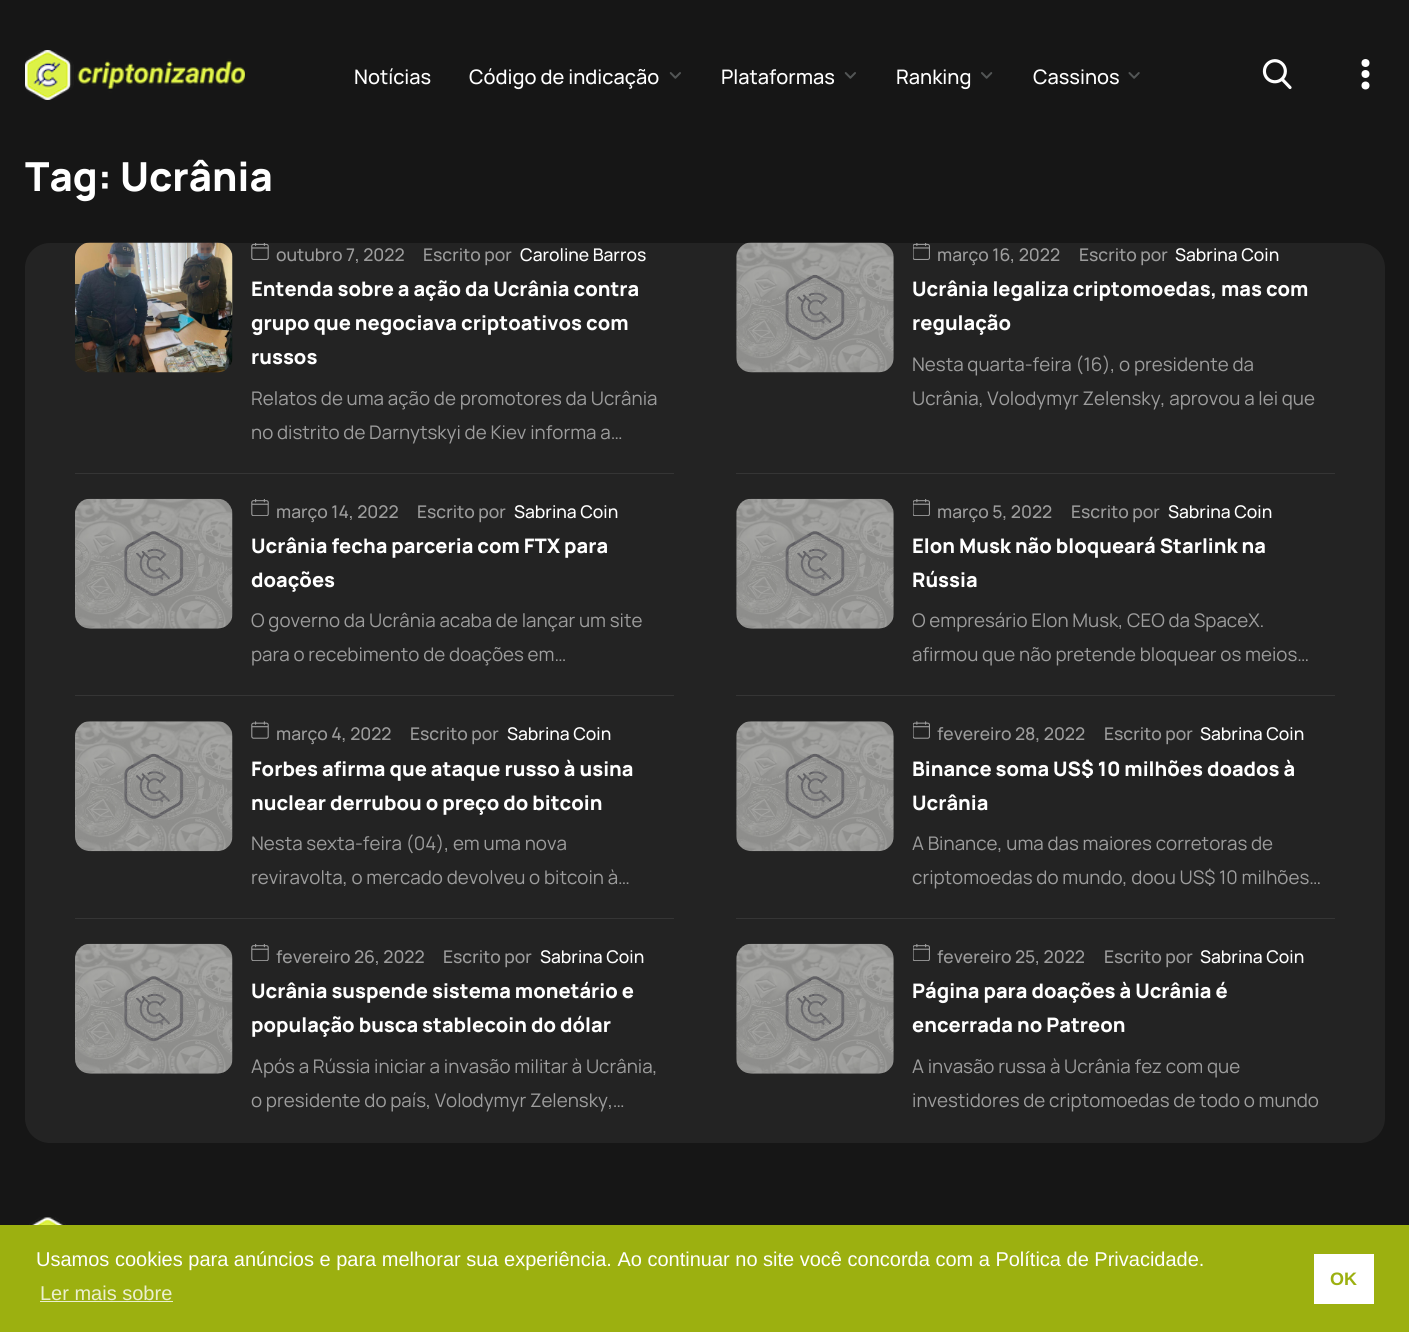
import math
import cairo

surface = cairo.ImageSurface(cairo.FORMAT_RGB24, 1409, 1332)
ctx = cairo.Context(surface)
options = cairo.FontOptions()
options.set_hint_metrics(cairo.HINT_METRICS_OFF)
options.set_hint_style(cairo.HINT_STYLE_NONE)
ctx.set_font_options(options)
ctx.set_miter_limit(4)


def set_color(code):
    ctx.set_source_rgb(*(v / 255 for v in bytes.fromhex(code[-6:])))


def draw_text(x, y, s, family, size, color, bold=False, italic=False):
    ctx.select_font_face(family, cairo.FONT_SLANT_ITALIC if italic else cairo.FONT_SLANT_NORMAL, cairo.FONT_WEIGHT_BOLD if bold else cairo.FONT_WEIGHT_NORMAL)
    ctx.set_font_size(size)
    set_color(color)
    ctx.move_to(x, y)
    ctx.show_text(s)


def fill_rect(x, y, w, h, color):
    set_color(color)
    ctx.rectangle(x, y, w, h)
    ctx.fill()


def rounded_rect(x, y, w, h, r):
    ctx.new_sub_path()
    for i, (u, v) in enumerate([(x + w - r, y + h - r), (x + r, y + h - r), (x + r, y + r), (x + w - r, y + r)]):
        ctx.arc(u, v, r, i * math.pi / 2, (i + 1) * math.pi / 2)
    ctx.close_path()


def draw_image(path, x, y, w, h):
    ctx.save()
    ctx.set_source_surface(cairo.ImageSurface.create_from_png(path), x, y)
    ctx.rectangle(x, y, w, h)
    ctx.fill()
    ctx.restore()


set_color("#161616")
ctx.paint()
draw_image("assets/img1.png", 25, 50, 220, 50)
draw_text(354, 84, "Notícias", "Manrope Medium", 20, "#ffffff")
draw_text(469, 84, "Código de indicação", "Manrope Medium", 20, "#ffffff")
draw_image("assets/img2.png", 669, 72, 12, 7)
draw_text(721, 84, "Plataformas", "Manrope Medium", 20, "#ffffff")
draw_image("assets/img2.png", 844, 72, 12, 7)
draw_text(896, 84, "Ranking", "Manrope Medium", 20, "#ffffff")
draw_image("assets/img3.png", 981, 72, 12, 7)
draw_text(1033, 84, "Cassinos", "Manrope Medium", 20, "#ffffff")
draw_image("assets/img4.png", 1128, 72, 12, 7)
draw_image("assets/img5.png", 1262, 59, 30, 31)
ctx.arc(1365.5, 63, 4, 0, 2 * math.pi)
ctx.fill()
ctx.arc(1365.5, 74, 4, 0, 2 * math.pi)
ctx.fill()
ctx.arc(1365.5, 85.5, 4, 0, 2 * math.pi)
ctx.fill()
draw_text(25, 191, "Tag: Ucrânia", "Manrope ExtraBold", 40, "#ffffff")
set_color("#232323")
rounded_rect(25, 243, 1360, 900, 25)
ctx.fill()
draw_image("assets/img6.png", 75, 242, 158, 131)
draw_image("assets/img7.png", 251, 243, 18, 17)
draw_text(276, 261, "outubro 7, 2022", "Manrope Medium", 17.5, "#9d9d9d")
draw_text(423, 261, "Escrito por", "Manrope Medium", 17.5, "#9d9d9d")
draw_text(520, 261, "Caroline Barros", "Manrope Medium", 17.5, "#ffffff")
draw_text(251, 296, "Entenda sobre a ação da Ucrânia contra", "Manrope ExtraBold", 20, "#ffffff")
draw_text(251, 330, "grupo que negociava criptoativos com", "Manrope ExtraBold", 20, "#ffffff")
draw_text(251, 364, "russos", "Manrope ExtraBold", 20, "#ffffff")
draw_text(251, 405, "Relatos de uma ação de promotores da Ucrânia", "Manrope", 18.75, "#9d9d9d")
draw_text(251, 439, "no distrito de Darnytskyi de Kiev informa a…", "Manrope", 18.75, "#9d9d9d")
fill_rect(75, 473, 599, 1, "#353535")
draw_image("assets/img8.png", 736, 242, 158, 131)
draw_image("assets/img9.png", 913, 243, 17, 17)
draw_text(937, 261, "março 16, 2022", "Manrope Medium", 17.5, "#9d9d9d")
draw_text(1079, 261, "Escrito por", "Manrope Medium", 17.5, "#9d9d9d")
draw_text(1175, 261, "Sabrina Coin", "Manrope Medium", 17.5, "#ffffff")
draw_text(912, 296, "Ucrânia legaliza criptomoedas, mas com", "Manrope ExtraBold", 20, "#ffffff")
draw_text(912, 330, "regulação", "Manrope ExtraBold", 20, "#ffffff")
draw_text(912, 371, "Nesta quarta-feira (16), o presidente da", "Manrope", 18.75, "#9d9d9d")
draw_text(912, 405, "Ucrânia, Volodymyr Zelensky, aprovou a lei que", "Manrope", 18.75, "#9d9d9d")
fill_rect(736, 473, 599, 1, "#353535")
draw_image("assets/img10.png", 75, 498, 158, 131)
draw_image("assets/img11.png", 251, 499, 18, 17)
draw_text(276, 518, "março 14, 2022", "Manrope Medium", 17.5, "#9d9d9d")
draw_text(417, 518, "Escrito por", "Manrope Medium", 17.5, "#9d9d9d")
draw_text(514, 518, "Sabrina Coin", "Manrope Medium", 17.5, "#ffffff")
draw_text(251, 553, "Ucrânia fecha parceria com FTX para", "Manrope ExtraBold", 20, "#ffffff")
draw_text(251, 587, "doações", "Manrope ExtraBold", 20, "#ffffff")
draw_text(251, 627, "O governo da Ucrânia acaba de lançar um site", "Manrope", 18.75, "#9d9d9d")
draw_text(251, 661, "para o recebimento de doações em…", "Manrope", 18.75, "#9d9d9d")
fill_rect(75, 695, 599, 1, "#353535")
draw_image("assets/img12.png", 736, 498, 158, 131)
draw_image("assets/img13.png", 913, 499, 17, 17)
draw_text(937, 518, "março 5, 2022", "Manrope Medium", 17.5, "#9d9d9d")
draw_text(1071, 518, "Escrito por", "Manrope Medium", 17.5, "#9d9d9d")
draw_text(1168, 518, "Sabrina Coin", "Manrope Medium", 17.5, "#ffffff")
draw_text(912, 553, "Elon Musk não bloqueará Starlink na", "Manrope ExtraBold", 20, "#ffffff")
draw_text(912, 587, "Rússia", "Manrope ExtraBold", 20, "#ffffff")
draw_text(912, 627, "O empresário Elon Musk, CEO da SpaceX.", "Manrope", 18.75, "#9d9d9d")
draw_text(912, 661, "afirmou que não pretende bloquear os meios…", "Manrope", 18.75, "#9d9d9d")
fill_rect(736, 695, 599, 1, "#353535")
draw_image("assets/img14.png", 75, 721, 158, 131)
draw_image("assets/img15.png", 251, 721, 18, 18)
draw_text(276, 740, "março 4, 2022", "Manrope Medium", 17.5, "#9d9d9d")
draw_text(410, 740, "Escrito por", "Manrope Medium", 17.5, "#9d9d9d")
draw_text(507, 740, "Sabrina Coin", "Manrope Medium", 17.5, "#ffffff")
draw_text(251, 776, "Forbes afirma que ataque russo à usina", "Manrope ExtraBold", 20, "#ffffff")
draw_text(251, 810, "nuclear derrubou o preço do bitcoin", "Manrope ExtraBold", 20, "#ffffff")
draw_text(251, 850, "Nesta sexta-feira (04), em uma nova", "Manrope", 18.75, "#9d9d9d")
draw_text(251, 884, "reviravolta, o mercado devolveu o bitcoin à…", "Manrope", 18.75, "#9d9d9d")
fill_rect(75, 918, 599, 1, "#353535")
draw_image("assets/img16.png", 736, 721, 158, 131)
draw_image("assets/img17.png", 913, 721, 17, 18)
draw_text(937, 740, "fevereiro 28, 2022", "Manrope Medium", 17.5, "#9d9d9d")
draw_text(1104, 740, "Escrito por", "Manrope Medium", 17.5, "#9d9d9d")
draw_text(1200, 740, "Sabrina Coin", "Manrope Medium", 17.5, "#ffffff")
draw_text(912, 776, "Binance soma US$ 10 milhões doados à", "Manrope ExtraBold", 20, "#ffffff")
draw_text(912, 810, "Ucrânia", "Manrope ExtraBold", 20, "#ffffff")
draw_text(912, 850, "A Binance, uma das maiores corretoras de", "Manrope", 18.75, "#9d9d9d")
draw_text(912, 884, "criptomoedas do mundo, doou US$ 10 milhões…", "Manrope", 18.75, "#9d9d9d")
fill_rect(736, 918, 599, 1, "#353535")
draw_image("assets/img18.png", 75, 943, 158, 131)
draw_image("assets/img11.png", 251, 944, 18, 17)
draw_text(276, 963, "fevereiro 26, 2022", "Manrope Medium", 17.5, "#9d9d9d")
draw_text(443, 963, "Escrito por", "Manrope Medium", 17.5, "#9d9d9d")
draw_text(540, 963, "Sabrina Coin", "Manrope Medium", 17.5, "#ffffff")
draw_text(251, 998, "Ucrânia suspende sistema monetário e", "Manrope ExtraBold", 20, "#ffffff")
draw_text(251, 1032, "população busca stablecoin do dólar", "Manrope ExtraBold", 20, "#ffffff")
draw_text(251, 1073, "Após a Rússia iniciar a invasão militar à Ucrânia,", "Manrope", 18.75, "#9d9d9d")
draw_text(251, 1107, "o presidente do país, Volodymyr Zelensky,…", "Manrope", 18.75, "#9d9d9d")
draw_image("assets/img19.png", 736, 943, 158, 131)
draw_image("assets/img13.png", 913, 944, 17, 17)
draw_text(937, 963, "fevereiro 25, 2022", "Manrope Medium", 17.5, "#9d9d9d")
draw_text(1104, 963, "Escrito por", "Manrope Medium", 17.5, "#9d9d9d")
draw_text(1200, 963, "Sabrina Coin", "Manrope Medium", 17.5, "#ffffff")
draw_text(912, 998, "Página para doações à Ucrânia é", "Manrope ExtraBold", 20, "#ffffff")
draw_text(912, 1032, "encerrada no Patreon", "Manrope ExtraBold", 20, "#ffffff")
draw_text(912, 1073, "A invasão russa à Ucrânia fez com que", "Manrope", 18.75, "#9d9d9d")
draw_text(912, 1107, "investidores de criptomoedas de todo o mundo", "Manrope", 18.75, "#9d9d9d")
draw_image("assets/img20.png", 29, 1217, 37, 8)
fill_rect(0, 1225, 1409, 107, "#9cb010")
draw_text(36, 1266, "Usamos cookies para anúncios e para melhorar sua experiência. Ao continuar no site você concorda com a Política de Privacidade.", "Liberation Sans", 20, "#ffffff")
draw_text(40, 1300, "Ler mais sobre", "Liberation Sans", 20, "#ebefcf")
fill_rect(40, 1301, 133, 1, "#ebefcf")
fill_rect(1314, 1254, 60, 50, "#ffffff")
draw_text(1330, 1285, "OK", "Liberation Sans", 18, "#9cb010", bold=True)
surface.write_to_png("output.png")
